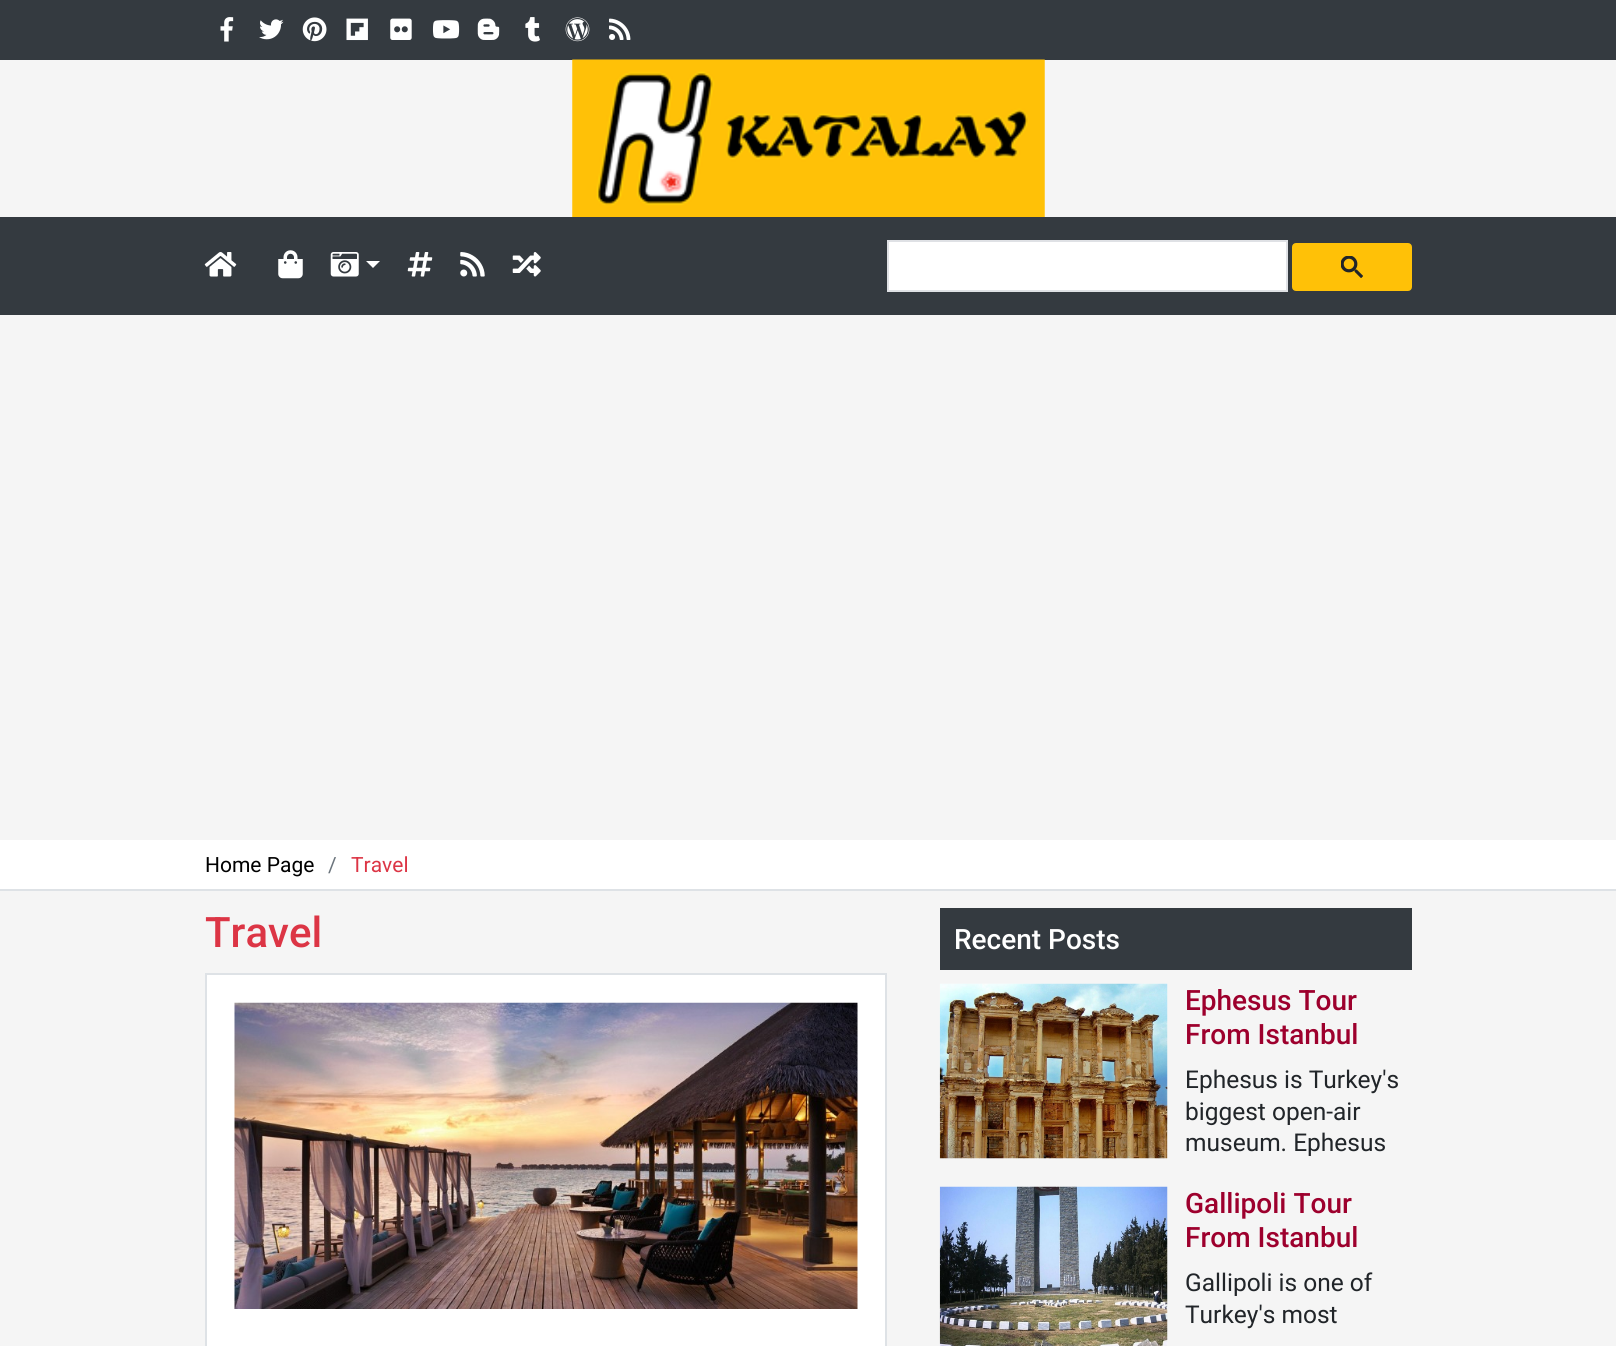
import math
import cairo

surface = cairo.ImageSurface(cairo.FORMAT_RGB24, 1616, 1346)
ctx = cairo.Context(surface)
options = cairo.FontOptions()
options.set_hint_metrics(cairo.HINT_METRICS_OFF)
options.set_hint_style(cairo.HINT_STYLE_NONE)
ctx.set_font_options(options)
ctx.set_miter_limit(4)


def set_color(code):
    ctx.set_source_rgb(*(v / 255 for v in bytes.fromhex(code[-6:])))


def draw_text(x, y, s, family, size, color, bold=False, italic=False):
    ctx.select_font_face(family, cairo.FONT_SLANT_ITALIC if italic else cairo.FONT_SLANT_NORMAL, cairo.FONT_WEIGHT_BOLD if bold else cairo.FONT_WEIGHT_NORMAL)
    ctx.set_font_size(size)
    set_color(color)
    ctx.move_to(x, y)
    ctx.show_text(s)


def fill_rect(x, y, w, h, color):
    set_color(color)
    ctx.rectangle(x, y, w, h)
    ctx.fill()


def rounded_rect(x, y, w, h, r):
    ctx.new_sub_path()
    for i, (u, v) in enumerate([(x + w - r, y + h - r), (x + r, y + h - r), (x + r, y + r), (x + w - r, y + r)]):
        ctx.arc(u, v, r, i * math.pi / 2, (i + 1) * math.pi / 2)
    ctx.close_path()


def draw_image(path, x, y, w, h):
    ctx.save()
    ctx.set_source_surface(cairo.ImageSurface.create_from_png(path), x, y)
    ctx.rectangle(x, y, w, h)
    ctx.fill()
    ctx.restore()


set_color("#f5f5f5")
ctx.paint()
fill_rect(0, 0, 1616, 60, "#343a40")
draw_image("assets/img1.png", 220, 17, 14, 25)
draw_image("assets/img2.png", 259, 19, 25, 21)
draw_image("assets/img3.png", 302, 17, 25, 25)
draw_image("assets/img4.png", 346, 18, 22, 23)
draw_image("assets/img5.png", 390, 18, 22, 22)
draw_image("assets/img6.png", 432, 20, 28, 19)
draw_image("assets/img7.png", 477, 18, 23, 22)
draw_image("assets/img8.png", 525, 17, 15, 25)
draw_image("assets/img9.png", 565, 17, 25, 25)
draw_image("assets/img10.png", 609, 18, 22, 22)
draw_image("assets/img11.png", 572, 59, 473, 158)
fill_rect(0, 217, 1616, 98, "#343a40")
draw_image("assets/img12.png", 204, 252, 33, 25)
draw_image("assets/img13.png", 278, 250, 25, 29)
draw_image("assets/img14.png", 330, 252, 29, 25)
set_color("#ffffff")
ctx.new_path()
ctx.move_to(366, 261)
ctx.line_to(380, 261)
ctx.line_to(373, 268)
ctx.close_path()
ctx.fill()
draw_image("assets/img15.png", 407, 252, 26, 25)
draw_image("assets/img16.png", 460, 252, 25, 25)
draw_image("assets/img17.png", 512, 252, 29, 25)
ctx.rectangle(888, 241, 399, 50)
ctx.fill_preserve()
set_color("#dfe1e5")
ctx.stroke()
set_color("#ffc107")
rounded_rect(1293, 244, 118, 46, 3)
ctx.fill_preserve()
ctx.stroke()
draw_image("assets/img18.png", 1341, 256, 22, 22)
fill_rect(0, 840, 1616, 49, "#ffffff")
fill_rect(0, 889, 1616, 2, "#dee2e6")
draw_text(205, 872, "Home Page", "Roboto", 21, "#000000")
draw_text(328, 872, "/", "Roboto", 21, "#6c757d")
draw_text(351, 872, "Travel", "Roboto", 21, "#dc3545")
draw_text(205, 947, "Travel", "Roboto Medium", 42, "#dc3545")
set_color("#ffffff")
ctx.rectangle(206, 974, 680, 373)
ctx.fill_preserve()
set_color("#dee2e6")
ctx.stroke()
draw_image("assets/img19.png", 234, 1002, 624, 307)
fill_rect(940, 908, 472, 62, "#343a40")
draw_text(954, 949, "Recent Posts", "Roboto Medium", 28, "#ffffff")
draw_image("assets/img20.png", 939, 983, 229, 176)
draw_text(1185, 1010, "Ephesus Tour", "Roboto Medium", 28, "#9d002d")
draw_text(1185, 1044, "From Istanbul", "Roboto Medium", 28, "#9d002d")
draw_text(1185, 1088, "Ephesus is Turkey's", "Roboto", 24.5, "#212529")
draw_text(1185, 1120, "biggest open-air", "Roboto", 24.5, "#212529")
draw_text(1185, 1151, "museum. Ephesus", "Roboto", 24.5, "#212529")
draw_image("assets/img21.png", 939, 1186, 229, 160)
draw_text(1185, 1213, "Gallipoli Tour", "Roboto Medium", 28, "#9d002d")
draw_text(1185, 1247, "From Istanbul", "Roboto Medium", 28, "#9d002d")
draw_text(1185, 1291, "Gallipoli is one of", "Roboto", 24.5, "#212529")
draw_text(1185, 1323, "Turkey's most", "Roboto", 24.5, "#212529")
surface.write_to_png("output.png")
